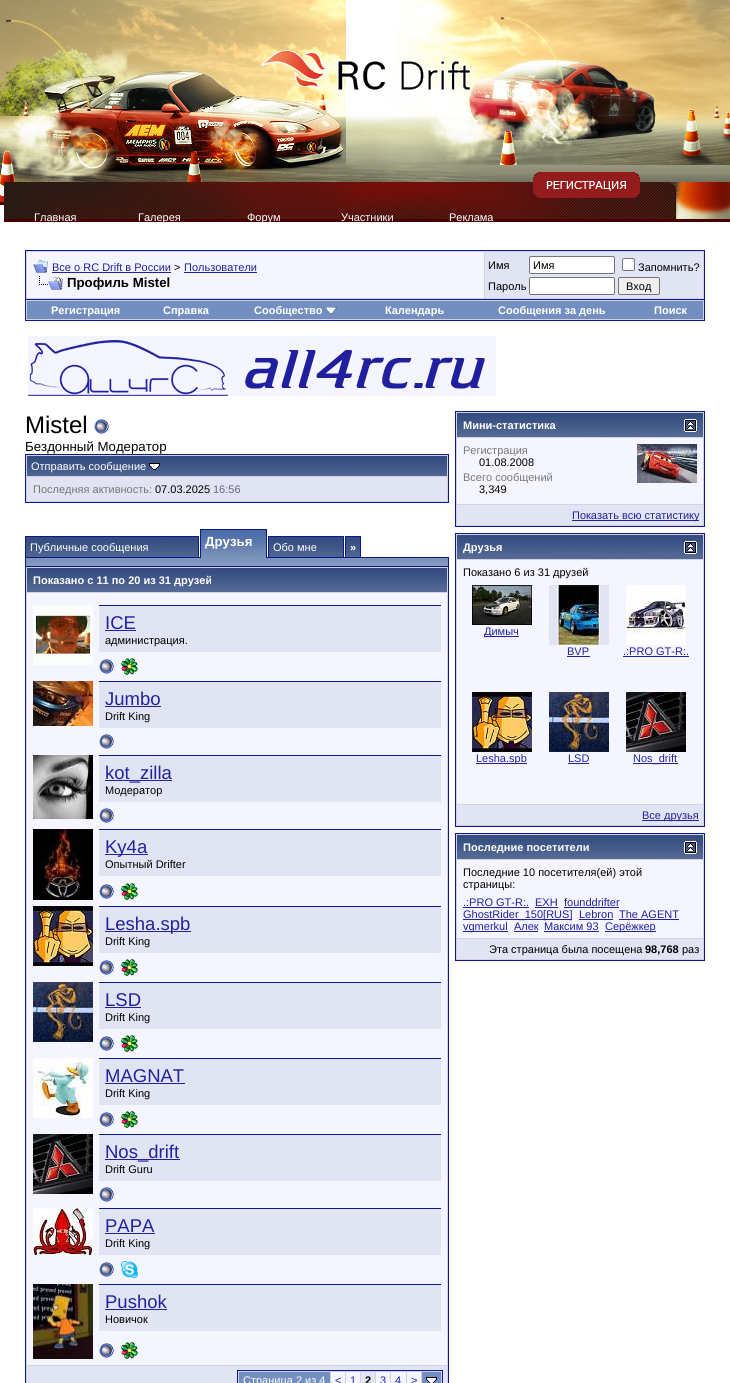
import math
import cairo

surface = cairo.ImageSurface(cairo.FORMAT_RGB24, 730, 1383)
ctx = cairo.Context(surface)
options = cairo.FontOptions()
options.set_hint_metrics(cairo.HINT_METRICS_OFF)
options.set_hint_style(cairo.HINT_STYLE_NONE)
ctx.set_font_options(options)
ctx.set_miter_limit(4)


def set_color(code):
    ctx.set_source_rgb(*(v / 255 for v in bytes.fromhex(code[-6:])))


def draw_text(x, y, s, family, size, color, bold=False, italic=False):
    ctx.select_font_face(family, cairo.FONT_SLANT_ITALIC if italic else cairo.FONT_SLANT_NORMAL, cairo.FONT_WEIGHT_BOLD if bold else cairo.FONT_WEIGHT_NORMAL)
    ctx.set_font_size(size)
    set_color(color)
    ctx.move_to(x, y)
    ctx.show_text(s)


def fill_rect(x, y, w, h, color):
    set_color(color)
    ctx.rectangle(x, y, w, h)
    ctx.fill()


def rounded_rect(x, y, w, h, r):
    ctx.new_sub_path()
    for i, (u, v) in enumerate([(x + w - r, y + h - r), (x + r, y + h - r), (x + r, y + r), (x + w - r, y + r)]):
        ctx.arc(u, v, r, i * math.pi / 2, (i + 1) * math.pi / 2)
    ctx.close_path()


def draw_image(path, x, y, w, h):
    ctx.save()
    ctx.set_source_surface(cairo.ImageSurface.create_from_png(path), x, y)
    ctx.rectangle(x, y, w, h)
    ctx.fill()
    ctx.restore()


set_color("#ffffff")
ctx.paint()
draw_image("assets/img1.png", 346, 116, 384, 66)
draw_image("assets/img2.png", 0, 0, 346, 165)
draw_image("assets/img3.png", 357, 0, 373, 165)
draw_image("assets/img4.png", 261, 50, 209, 40)
draw_image("assets/img5.png", 0, 165, 498, 40)
draw_image("assets/img6.png", 4, 182, 726, 40)
draw_image("assets/img7.png", 533, 172, 107, 26)
draw_text(34, 221, "Главная", "Liberation Sans", 11, "#ffffff")
draw_text(138, 221, "Галерея", "Liberation Sans", 11, "#ffffff")
draw_text(247, 221, "Форум", "Liberation Sans", 11, "#ffffff")
draw_text(341, 221, "Участники", "Liberation Sans", 11, "#ffffff")
draw_text(449, 221, "Реклама", "Liberation Sans", 11, "#ffffff")
set_color("#d1d1e1")
ctx.rectangle(25.5, 250.5, 679, 49)
ctx.fill_preserve()
set_color("#0b198c")
ctx.set_line_width(1)
ctx.stroke()
fill_rect(27, 252, 457, 46, "#f5f5ff")
draw_image("assets/img8.png", 33, 260, 15, 13)
draw_text(52, 271, "Все о RC Drift в России", "Liberation Sans", 11, "#22229c")
fill_rect(52, 272, 119, 1, "#22229c")
draw_text(174, 271, ">", "Liberation Sans", 11, "#000000")
draw_text(184, 271, "Пользователи", "Liberation Sans", 11, "#22229c")
fill_rect(184, 272, 73, 1, "#22229c")
draw_image("assets/img9.png", 39, 276, 24, 14)
draw_text(67, 287, "Профиль Mistel", "Liberation Sans", 13.25, "#000000", bold=True)
fill_rect(485, 252, 218, 46, "#e1e4f2")
draw_text(488, 269, "Имя", "Liberation Sans", 11, "#000000")
set_color("#ffffff")
rounded_rect(529.5, 256.5, 85, 17, 1.5)
ctx.fill_preserve()
set_color("#767676")
ctx.stroke()
draw_text(533, 269, "Имя", "Liberation Sans", 11, "#000000")
set_color("#ffffff")
rounded_rect(622.5, 258.5, 12, 12, 1.5)
ctx.fill_preserve()
set_color("#767676")
ctx.stroke()
draw_text(638, 271, "Запомнить?", "Liberation Sans", 11, "#000000")
draw_text(488, 290, "Пароль", "Liberation Sans", 11, "#000000")
set_color("#ffffff")
rounded_rect(529.5, 277.5, 85, 17, 1.5)
ctx.fill_preserve()
set_color("#767676")
ctx.stroke()
set_color("#efefef")
rounded_rect(618.5, 277.5, 41, 17, 1.5)
ctx.fill_preserve()
set_color("#767676")
ctx.stroke()
draw_text(626, 290, "Вход", "Liberation Sans", 11, "#000000")
fill_rect(26, 300, 678, 20, "#d1d1e1")
fill_rect(704, 300, 1, 21, "#0b198c")
fill_rect(25, 320, 680, 1, "#0b198c")
fill_rect(25, 300, 1, 21, "#0b198c")
fill_rect(27, 301, 676, 18, "#738fbf")
draw_text(51, 314, "Регистрация", "Liberation Sans", 11, "#ffffff", bold=True)
draw_text(163, 314, "Справка", "Liberation Sans", 11, "#ffffff", bold=True)
draw_text(254, 314, "Сообщество", "Liberation Sans", 11, "#ffffff", bold=True)
draw_image("assets/img10.png", 326, 307, 11, 7)
draw_text(385, 314, "Календарь", "Liberation Sans", 11, "#ffffff", bold=True)
draw_text(498, 314, "Сообщения за день", "Liberation Sans", 11, "#ffffff", bold=True)
draw_text(654, 314, "Поиск", "Liberation Sans", 11, "#ffffff", bold=True)
draw_image("assets/img11.png", 28, 336, 468, 60)
draw_text(25, 433, "Mistel", "Liberation Sans", 24, "#000000")
draw_image("assets/img12.png", 94, 419, 15, 15)
draw_text(25, 451, "Бездонный Модератор", "Liberation Sans", 13.25, "#000000")
set_color("#d1d1e1")
ctx.rectangle(25.5, 454.5, 423, 48)
ctx.fill_preserve()
set_color("#0b198c")
ctx.stroke()
draw_image("assets/img13.png", 27, 456, 420, 20)
draw_text(31, 470, "Отправить сообщение", "Liberation Sans", 11, "#ffffff")
draw_image("assets/img14.png", 149, 463, 11, 7)
fill_rect(27, 477, 420, 24, "#e1e4f2")
draw_text(33, 493, "Последняя активность:", "Liberation Sans", 11, "#777777")
draw_text(155, 493, "07.03.2025", "Liberation Sans", 11, "#000000")
draw_text(213, 493, "16:56", "Liberation Sans", 11, "#666686")
draw_image("assets/img15.png", 26, 537, 172, 20)
fill_rect(25, 557, 1, 9, "#0b198c")
ctx.rectangle(25.5, 536.5, 173, 21)
ctx.stroke()
draw_text(30, 551, "Публичные сообщения", "Liberation Sans", 11, "#ffffff")
fill_rect(199, 557, 250, 1, "#0b198c")
draw_image("assets/img16.png", 201, 530, 65, 28)
fill_rect(200, 529, 67, 1, "#0b198c")
fill_rect(266, 529, 1, 29, "#0b198c")
fill_rect(200, 529, 1, 29, "#0b198c")
draw_text(205, 546, "Друзья", "Liberation Sans", 13.25, "#ffffff", bold=True)
draw_image("assets/img17.png", 269, 537, 74, 20)
ctx.rectangle(268.5, 536.5, 75, 21)
set_color("#0b198c")
ctx.stroke()
draw_text(273, 551, "Обо мне", "Liberation Sans", 11, "#ffffff")
draw_image("assets/img18.png", 346, 537, 14, 20)
ctx.rectangle(345.5, 536.5, 15, 21)
set_color("#0b198c")
ctx.stroke()
draw_text(350, 551, "»", "Liberation Sans", 11, "#ffffff", bold=True)
fill_rect(26, 563, 422, 3, "#869bbf")
draw_image("assets/img19.png", 26, 558, 422, 5)
fill_rect(448, 557, 1, 9, "#0b198c")
set_color("#d1d1e1")
ctx.rectangle(25.5, 566.5, 423, 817)
ctx.fill_preserve()
set_color("#0b198c")
ctx.stroke()
draw_image("assets/img20.png", 27, 568, 420, 24)
draw_text(33, 584, "Показано с 11 по 20 из 31 друзей", "Liberation Sans", 11, "#ffffff", bold=True)
fill_rect(27, 593, 420, 772, "#f5f5ff")
draw_image("assets/img21.png", 33, 605, 60, 60)
fill_rect(99, 605, 342, 1, "#0b198c")
fill_rect(99, 606, 342, 46, "#e1e4f2")
draw_text(105, 629, "ICE", "Liberation Sans", 18.5, "#22229c")
fill_rect(105, 630, 31, 1, "#22229c")
draw_text(105, 644, "администрация.", "Liberation Sans", 11, "#000000")
draw_image("assets/img22.png", 99, 659, 15, 15)
draw_image("assets/img23.png", 121, 658, 17, 17)
draw_image("assets/img24.png", 33, 681, 60, 45)
fill_rect(99, 681, 342, 1, "#0b198c")
fill_rect(99, 682, 342, 46, "#e1e4f2")
draw_text(105, 705, "Jumbo", "Liberation Sans", 18.5, "#22229c")
fill_rect(105, 706, 56, 1, "#22229c")
draw_text(105, 720, "Drift King", "Liberation Sans", 11, "#000000")
draw_image("assets/img22.png", 99, 734, 15, 15)
draw_image("assets/img25.png", 33, 755, 60, 64)
fill_rect(99, 755, 342, 1, "#0b198c")
fill_rect(99, 756, 342, 46, "#e1e4f2")
fill_rect(105, 780, 67, 1, "#22229c")
draw_text(105, 779, "kot_zilla", "Liberation Sans", 18.5, "#22229c")
draw_text(105, 794, "Модератор", "Liberation Sans", 11, "#000000")
draw_image("assets/img22.png", 99, 808, 15, 15)
draw_image("assets/img26.png", 33, 829, 60, 71)
fill_rect(99, 829, 342, 1, "#0b198c")
fill_rect(99, 830, 342, 46, "#e1e4f2")
fill_rect(105, 854, 43, 1, "#22229c")
draw_text(105, 853, "Ky4a", "Liberation Sans", 18.5, "#22229c")
draw_text(105, 868, "Опытный Drifter", "Liberation Sans", 11, "#000000")
draw_image("assets/img22.png", 99, 884, 15, 15)
draw_image("assets/img23.png", 121, 883, 17, 17)
draw_image("assets/img27.png", 33, 906, 60, 60)
fill_rect(99, 906, 342, 1, "#0b198c")
fill_rect(99, 907, 342, 46, "#e1e4f2")
fill_rect(105, 931, 86, 1, "#22229c")
draw_text(105, 930, "Lesha.spb", "Liberation Sans", 18.5, "#22229c")
draw_text(105, 945, "Drift King", "Liberation Sans", 11, "#000000")
draw_image("assets/img22.png", 99, 960, 15, 15)
draw_image("assets/img23.png", 121, 959, 17, 17)
draw_image("assets/img28.png", 33, 982, 60, 60)
fill_rect(99, 982, 342, 1, "#0b198c")
fill_rect(99, 983, 342, 46, "#e1e4f2")
draw_text(105, 1006, "LSD", "Liberation Sans", 18.5, "#22229c")
fill_rect(105, 1007, 36, 1, "#22229c")
draw_text(105, 1021, "Drift King", "Liberation Sans", 11, "#000000")
draw_image("assets/img22.png", 99, 1036, 15, 15)
draw_image("assets/img23.png", 121, 1035, 17, 17)
draw_image("assets/img29.png", 33, 1058, 60, 60)
fill_rect(99, 1058, 342, 1, "#0b198c")
fill_rect(99, 1059, 342, 46, "#e1e4f2")
draw_text(105, 1082, "MAGNAT", "Liberation Sans", 18.5, "#22229c")
fill_rect(105, 1083, 80, 1, "#22229c")
draw_text(105, 1097, "Drift King", "Liberation Sans", 11, "#000000")
draw_image("assets/img22.png", 99, 1112, 15, 15)
draw_image("assets/img23.png", 121, 1111, 17, 17)
draw_image("assets/img30.png", 33, 1134, 60, 60)
fill_rect(99, 1134, 342, 1, "#0b198c")
fill_rect(99, 1135, 342, 46, "#e1e4f2")
fill_rect(105, 1159, 75, 1, "#22229c")
draw_text(105, 1158, "Nos_drift", "Liberation Sans", 18.5, "#22229c")
draw_text(105, 1173, "Drift Guru", "Liberation Sans", 11, "#000000")
draw_image("assets/img22.png", 99, 1187, 15, 15)
draw_image("assets/img31.png", 33, 1208, 60, 48)
fill_rect(99, 1208, 342, 1, "#0b198c")
fill_rect(99, 1209, 342, 46, "#e1e4f2")
draw_text(105, 1232, "PAPA", "Liberation Sans", 18.5, "#22229c")
fill_rect(105, 1233, 50, 1, "#22229c")
draw_text(105, 1247, "Drift King", "Liberation Sans", 11, "#000000")
draw_image("assets/img22.png", 99, 1262, 15, 15)
draw_image("assets/img32.png", 121, 1261, 17, 17)
draw_image("assets/img33.png", 33, 1284, 60, 75)
fill_rect(99, 1284, 342, 1, "#0b198c")
fill_rect(99, 1285, 342, 46, "#e1e4f2")
draw_text(105, 1308, "Pushok", "Liberation Sans", 18.5, "#22229c")
fill_rect(105, 1309, 62, 1, "#22229c")
draw_text(105, 1323, "Новичок", "Liberation Sans", 11, "#000000")
draw_image("assets/img22.png", 99, 1343, 15, 15)
draw_image("assets/img23.png", 121, 1342, 17, 17)
fill_rect(27, 1366, 420, 17, "#e1e4f2")
set_color("#d1d1e1")
ctx.rectangle(237.5, 1370.5, 205, 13)
ctx.fill_preserve()
set_color("#0b198c")
ctx.stroke()
fill_rect(239, 1372, 91, 11, "#738fbf")
draw_text(243, 1384, "Страница 2 из 4", "Liberation Sans", 11, "#ffffff")
fill_rect(331, 1372, 14, 11, "#f5f5ff")
draw_text(335, 1384, "<", "Liberation Sans", 11, "#22229c")
fill_rect(346, 1372, 14, 11, "#f5f5ff")
draw_text(350, 1384, "1", "Liberation Sans", 11, "#22229c")
fill_rect(361, 1372, 14, 11, "#e1e4f2")
draw_text(365, 1384, "2", "Liberation Sans", 11, "#000000", bold=True)
fill_rect(376, 1372, 14, 11, "#f5f5ff")
draw_text(380, 1384, "3", "Liberation Sans", 11, "#22229c")
fill_rect(391, 1372, 15, 11, "#f5f5ff")
draw_text(395, 1384, "4", "Liberation Sans", 11, "#22229c")
fill_rect(407, 1372, 14, 11, "#f5f5ff")
draw_text(411, 1384, ">", "Liberation Sans", 11, "#22229c")
fill_rect(422, 1372, 19, 11, "#738fbf")
draw_image("assets/img34.png", 426, 1377, 11, 6)
set_color("#d1d1e1")
ctx.rectangle(455.5, 411.5, 249, 115)
ctx.fill_preserve()
set_color("#0b198c")
ctx.stroke()
draw_image("assets/img35.png", 457, 413, 246, 24)
draw_text(463, 429, "Мини-статистика", "Liberation Sans", 11, "#ffffff", bold=True)
draw_image("assets/img36.png", 684, 419, 13, 13)
fill_rect(457, 438, 246, 66, "#f5f5ff")
draw_text(463, 454, "Регистрация", "Liberation Sans", 11, "#777777")
draw_text(479, 466, "01.08.2008", "Liberation Sans", 11, "#000000")
draw_text(463, 481, "Всего сообщений", "Liberation Sans", 11, "#777777")
draw_text(479, 493, "3,349", "Liberation Sans", 11, "#000000")
draw_image("assets/img37.png", 637, 444, 60, 39)
fill_rect(457, 505, 246, 20, "#e1e4f2")
fill_rect(572, 520, 127, 1, "#22229c")
draw_text(572, 519, "Показать всю статистику", "Liberation Sans", 11, "#22229c")
set_color("#d1d1e1")
ctx.rectangle(455.5, 533.5, 249, 293)
ctx.fill_preserve()
set_color("#0b198c")
ctx.stroke()
draw_image("assets/img35.png", 457, 535, 246, 24)
draw_text(463, 551, "Друзья", "Liberation Sans", 11, "#ffffff", bold=True)
draw_image("assets/img36.png", 684, 541, 13, 13)
fill_rect(457, 560, 246, 244, "#f5f5ff")
draw_text(463, 576, "Показано 6 из 31 друзей", "Liberation Sans", 11, "#000000")
draw_image("assets/img38.png", 472, 585, 60, 40)
fill_rect(484, 636, 35, 1, "#22229c")
draw_text(484, 635, "Димыч", "Liberation Sans", 11, "#22229c")
draw_image("assets/img39.png", 549, 585, 60, 60)
draw_text(567, 655, "BVP", "Liberation Sans", 11, "#22229c")
fill_rect(567, 656, 23, 1, "#22229c")
draw_image("assets/img40.png", 626, 585, 60, 60)
draw_text(623, 655, ".:PRO GT-R:.", "Liberation Sans", 11, "#22229c")
fill_rect(623, 656, 66, 1, "#22229c")
draw_image("assets/img27.png", 472, 692, 60, 60)
fill_rect(476, 763, 51, 1, "#22229c")
draw_text(476, 762, "Lesha.spb", "Liberation Sans", 11, "#22229c")
draw_image("assets/img28.png", 549, 692, 60, 60)
draw_text(568, 762, "LSD", "Liberation Sans", 11, "#22229c")
fill_rect(568, 763, 21, 1, "#22229c")
draw_image("assets/img30.png", 626, 692, 60, 60)
fill_rect(633, 763, 45, 1, "#22229c")
draw_text(633, 762, "Nos_drift", "Liberation Sans", 11, "#22229c")
fill_rect(457, 805, 246, 20, "#e1e4f2")
fill_rect(642, 820, 57, 1, "#22229c")
draw_text(642, 819, "Все друзья", "Liberation Sans", 11, "#22229c")
set_color("#d1d1e1")
ctx.rectangle(455.5, 833.5, 249, 127)
ctx.fill_preserve()
set_color("#0b198c")
ctx.stroke()
draw_image("assets/img35.png", 457, 835, 246, 24)
draw_text(463, 851, "Последние посетители", "Liberation Sans", 11, "#ffffff", bold=True)
draw_image("assets/img36.png", 684, 841, 13, 13)
fill_rect(457, 860, 246, 78, "#f5f5ff")
draw_text(463, 876, "Последние 10 посетителя(ей) этой", "Liberation Sans", 11, "#000000")
draw_text(463, 888, "страницы:", "Liberation Sans", 11, "#000000")
draw_text(463, 906, ".:PRO GT-R:.", "Liberation Sans", 11, "#22229c")
fill_rect(463, 907, 66, 1, "#22229c")
draw_text(535, 906, "EXH", "Liberation Sans", 11, "#22229c")
fill_rect(535, 907, 23, 1, "#22229c")
draw_text(564, 906, "founddrifter", "Liberation Sans", 11, "#22229c")
fill_rect(564, 907, 55, 1, "#22229c")
fill_rect(463, 919, 109, 1, "#22229c")
draw_text(463, 918, "GhostRider_150[RUS]", "Liberation Sans", 11, "#22229c")
draw_text(579, 918, "Lebron", "Liberation Sans", 11, "#22229c")
fill_rect(579, 919, 34, 1, "#22229c")
draw_text(619, 918, "The AGENT", "Liberation Sans", 11, "#22229c")
fill_rect(619, 919, 60, 1, "#22229c")
fill_rect(463, 931, 45, 1, "#22229c")
draw_text(463, 930, "vgmerkul", "Liberation Sans", 11, "#22229c")
draw_text(514, 930, "Алек", "Liberation Sans", 11, "#22229c")
fill_rect(514, 931, 24, 1, "#22229c")
draw_text(544, 930, "Максим 93", "Liberation Sans", 11, "#22229c")
fill_rect(544, 931, 55, 1, "#22229c")
fill_rect(605, 931, 51, 1, "#22229c")
draw_text(605, 930, "Серёжкер", "Liberation Sans", 11, "#22229c")
fill_rect(457, 939, 246, 20, "#e1e4f2")
draw_text(489, 953, "Эта страница была посещена", "Liberation Sans", 11, "#000000")
draw_text(645, 953, "98,768", "Liberation Sans", 11, "#000000", bold=True)
draw_text(682, 953, "раз", "Liberation Sans", 11, "#000000")
surface.write_to_png("output.png")
